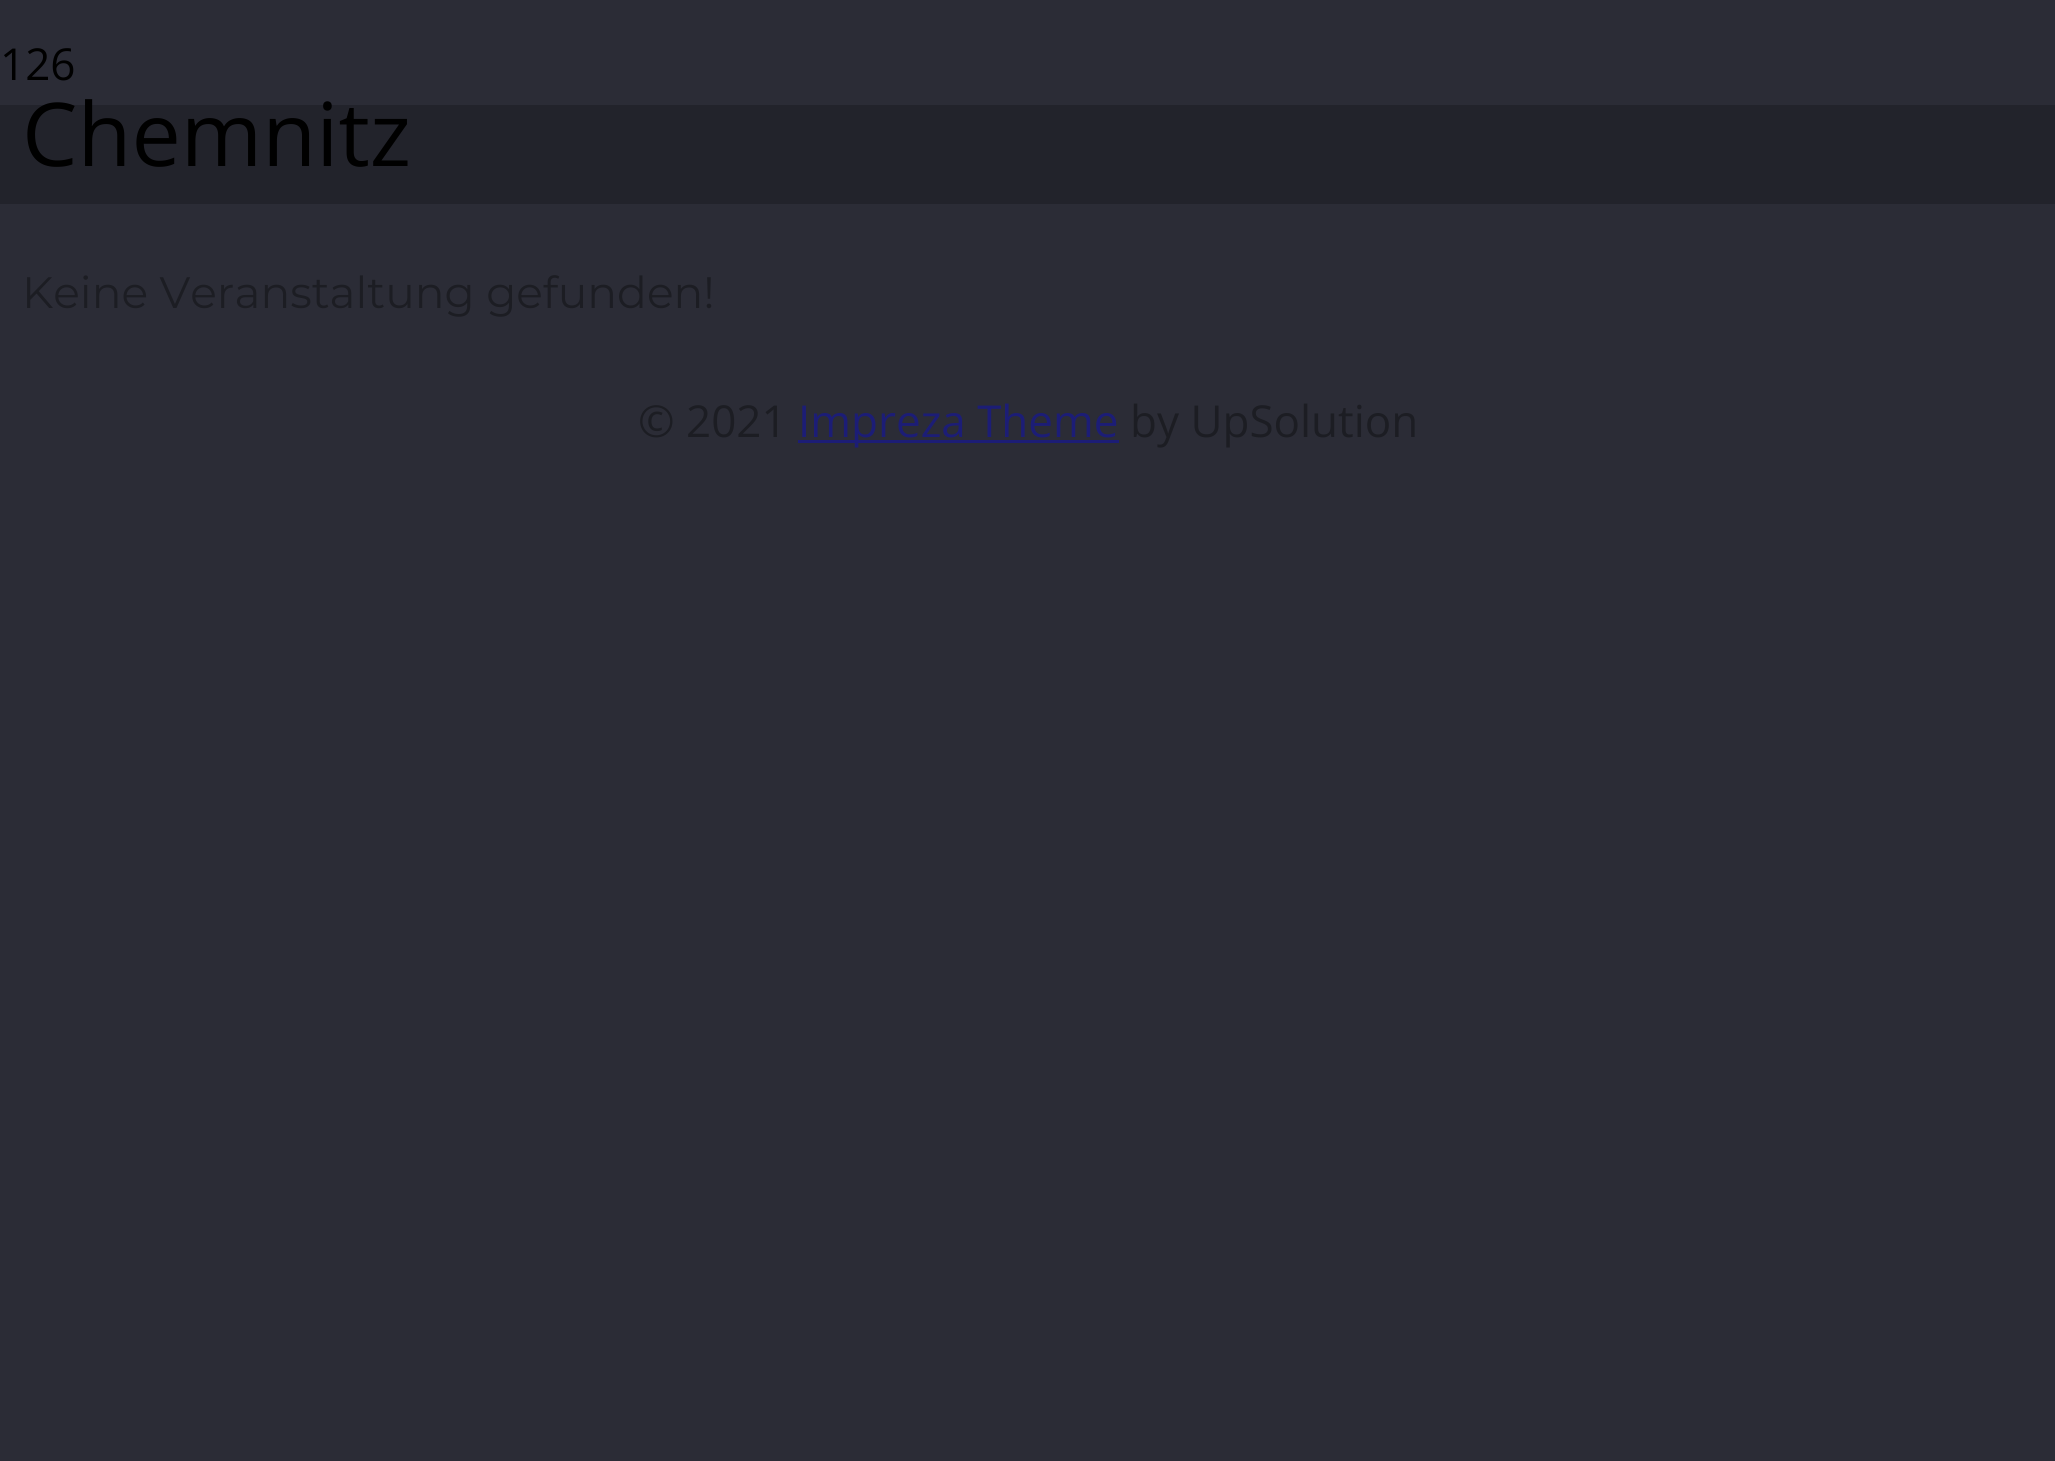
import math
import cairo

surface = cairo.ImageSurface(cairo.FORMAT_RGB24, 2055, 1461)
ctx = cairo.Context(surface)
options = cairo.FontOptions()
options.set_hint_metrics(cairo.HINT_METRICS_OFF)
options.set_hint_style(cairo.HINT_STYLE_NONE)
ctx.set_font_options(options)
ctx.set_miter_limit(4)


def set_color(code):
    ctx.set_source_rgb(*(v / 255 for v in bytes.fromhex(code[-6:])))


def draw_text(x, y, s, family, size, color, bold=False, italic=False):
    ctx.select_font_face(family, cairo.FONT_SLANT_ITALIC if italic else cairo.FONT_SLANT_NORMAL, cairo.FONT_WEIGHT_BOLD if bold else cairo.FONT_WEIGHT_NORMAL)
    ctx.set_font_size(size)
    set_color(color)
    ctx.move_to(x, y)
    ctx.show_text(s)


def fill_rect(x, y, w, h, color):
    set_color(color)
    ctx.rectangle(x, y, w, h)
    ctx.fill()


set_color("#2b2c36")
ctx.paint()
draw_text(0, 80, "126", "Open Sans", 44, "#000000")
draw_text(22, 166, "Chemnitz", "Open Sans", 88, "#000000")
ctx.set_source_rgba(0, 0, 0, 0.2)
ctx.rectangle(0, 105, 2055, 99)
ctx.fill()
draw_text(22, 308, "Keine Veranstaltung gefunden!", "Montserrat", 44, "#1c1d23")
draw_text(638, 437, "© 2021", "Open Sans", 44, "#1c1d23")
fill_rect(798, 440, 321, 3, "#1c1d76")
draw_text(798, 437, "Impreza Theme", "Open Sans", 44, "#1c1d76")
draw_text(1130, 437, "by UpSolution", "Open Sans", 44, "#1c1d23")
surface.write_to_png("output.png")
